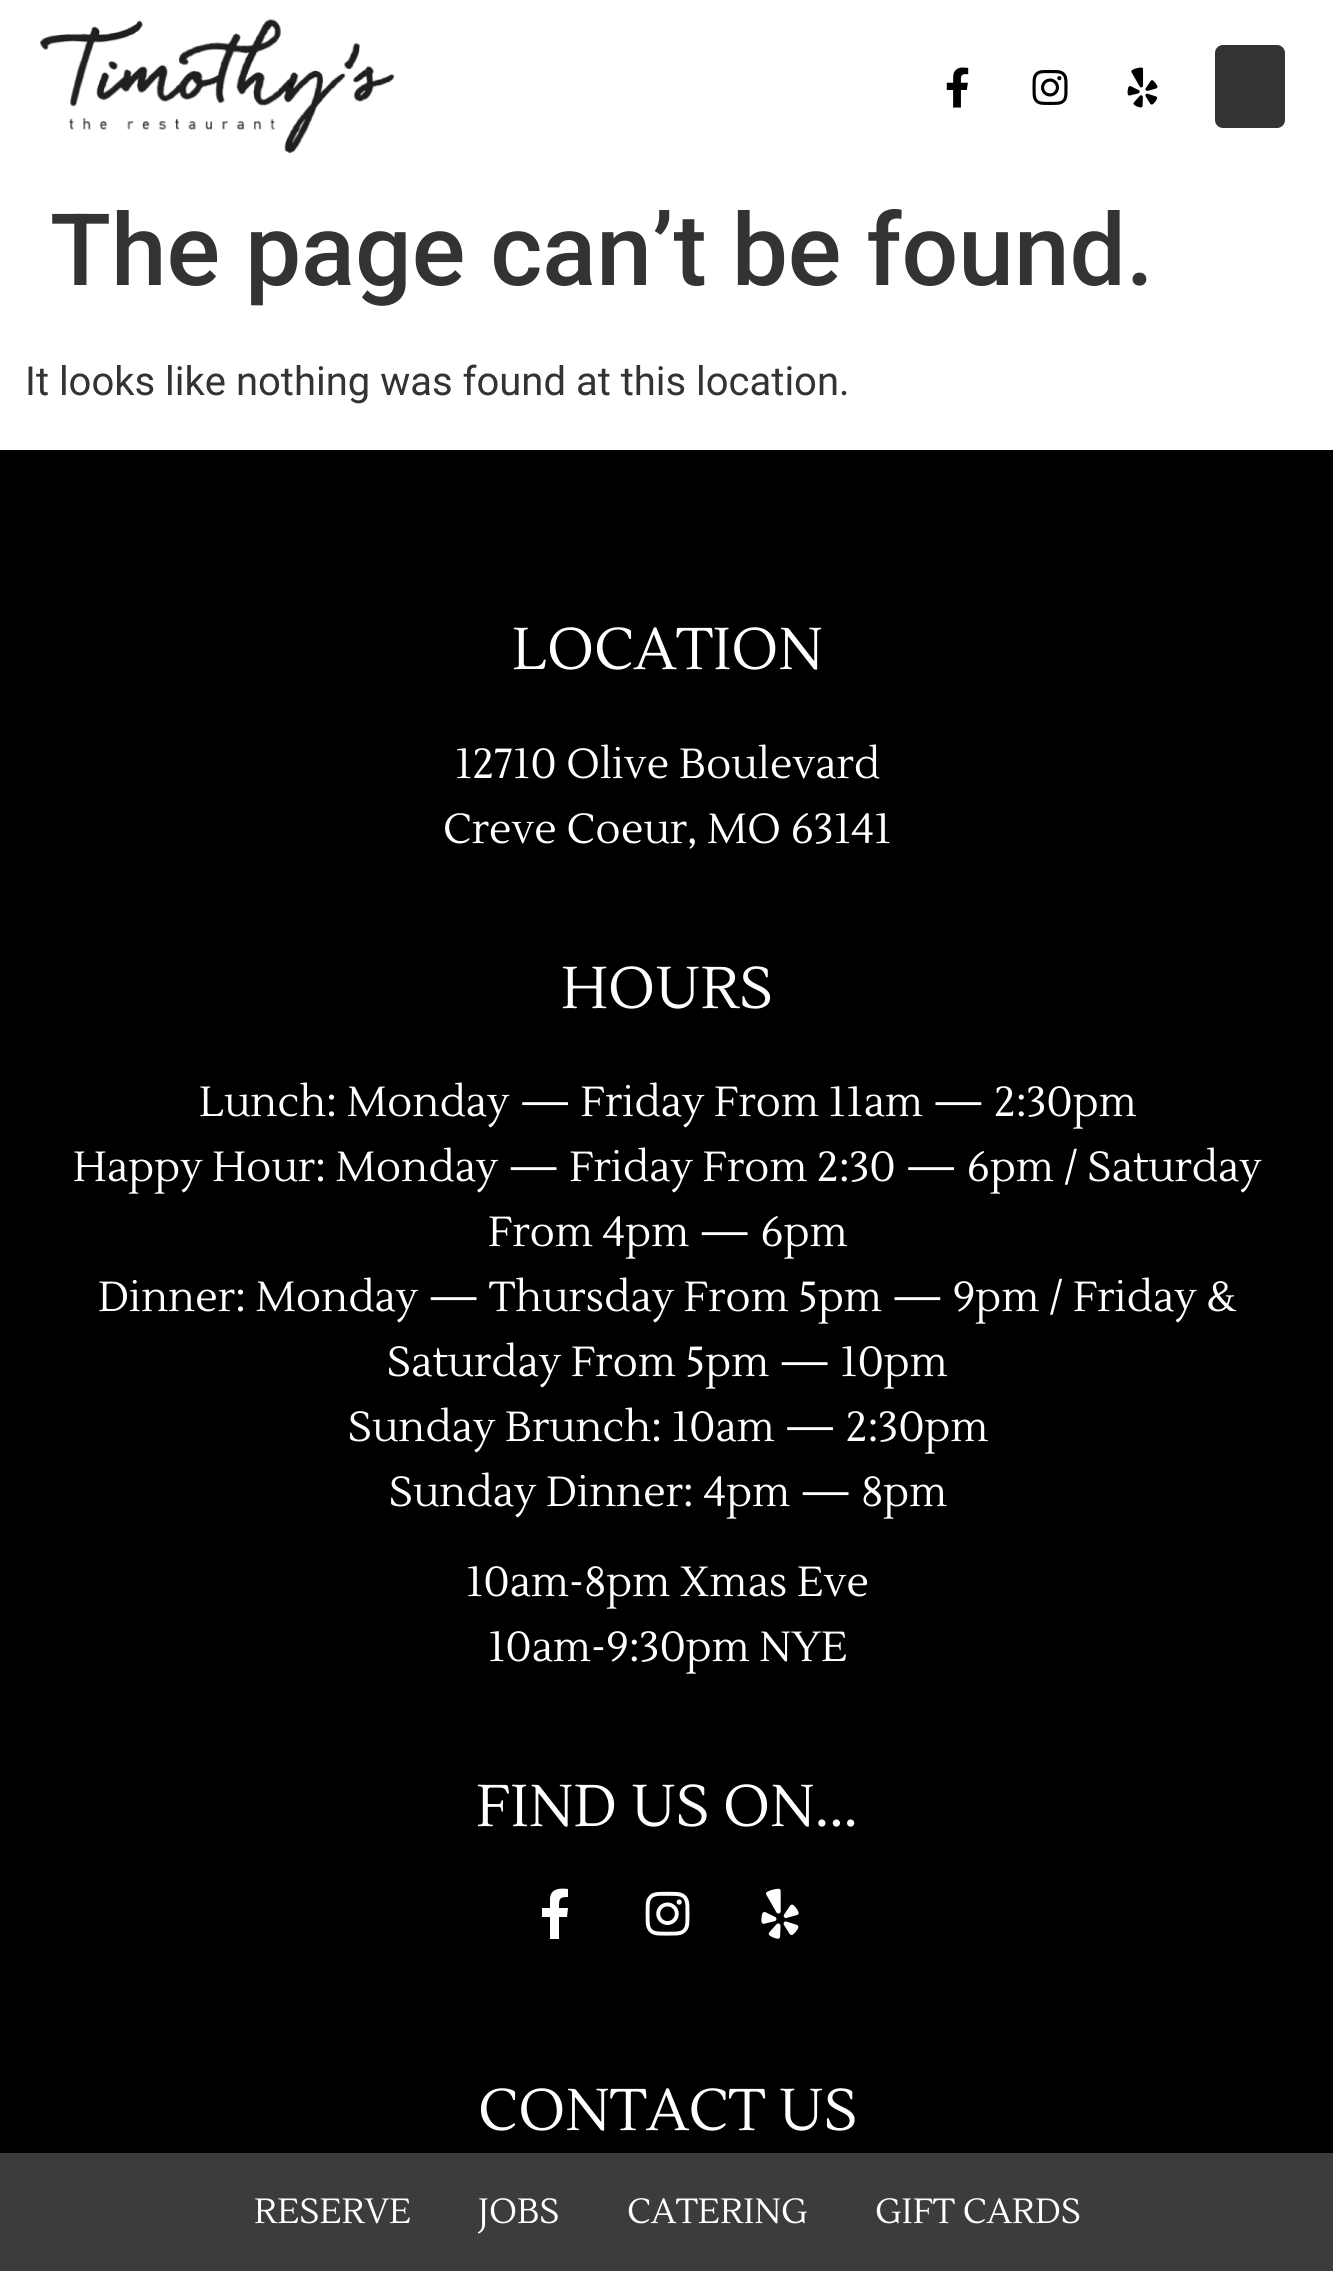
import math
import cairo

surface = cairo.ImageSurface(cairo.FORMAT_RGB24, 1333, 2271)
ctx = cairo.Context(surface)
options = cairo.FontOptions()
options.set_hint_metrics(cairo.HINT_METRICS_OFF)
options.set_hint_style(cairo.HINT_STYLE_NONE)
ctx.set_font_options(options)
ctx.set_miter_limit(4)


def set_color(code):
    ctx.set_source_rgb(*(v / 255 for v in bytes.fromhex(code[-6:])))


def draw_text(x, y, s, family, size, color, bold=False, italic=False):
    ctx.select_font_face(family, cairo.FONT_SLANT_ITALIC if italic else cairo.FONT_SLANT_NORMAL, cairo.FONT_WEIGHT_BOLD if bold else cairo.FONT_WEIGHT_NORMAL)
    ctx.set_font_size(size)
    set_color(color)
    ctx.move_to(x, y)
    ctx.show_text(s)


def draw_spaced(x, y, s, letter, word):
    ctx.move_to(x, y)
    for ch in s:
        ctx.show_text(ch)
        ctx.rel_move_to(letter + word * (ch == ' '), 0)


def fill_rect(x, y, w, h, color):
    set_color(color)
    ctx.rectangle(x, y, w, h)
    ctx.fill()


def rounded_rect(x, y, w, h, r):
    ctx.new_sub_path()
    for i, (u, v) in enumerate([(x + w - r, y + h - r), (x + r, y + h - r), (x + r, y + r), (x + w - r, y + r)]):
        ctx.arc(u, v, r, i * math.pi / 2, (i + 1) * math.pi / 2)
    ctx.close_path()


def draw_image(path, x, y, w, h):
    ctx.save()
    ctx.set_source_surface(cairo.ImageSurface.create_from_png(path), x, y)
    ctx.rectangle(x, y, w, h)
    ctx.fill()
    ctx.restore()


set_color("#ffffff")
ctx.paint()
draw_image("assets/img1.png", 39, 18, 356, 136)
draw_image("assets/img2.png", 946, 67, 23, 41)
draw_image("assets/img3.png", 1032, 69, 36, 36)
draw_image("assets/img4.png", 1127, 67, 31, 41)
set_color("#333333")
rounded_rect(1215, 45, 70, 83, 8)
ctx.fill()
draw_text(50, 285, "The page can’t be found.", "Roboto Medium", 100, "#333333")
draw_text(25, 395, "It looks like nothing was found at this location.", "Roboto", 40, "#333333")
fill_rect(0, 450, 1333, 1703, "#000000")
draw_text(512, 669, "LOCATION", "Lustria", 58.75, "#ffffff")
draw_text(455, 778, "12710 Olive Boulevard", "Lustria", 42, "#ffffff")
draw_text(443, 843, "Creve Coeur, MO 63141", "Lustria", 42, "#ffffff")
draw_text(561, 1008, "HOURS", "Lustria", 58.75, "#ffffff")
draw_text(199, 1116, "Lunch: Monday — Friday From 11am — 2:30pm", "Lustria", 42, "#ffffff")
draw_spaced(73, 1181, "Happy Hour: Monday — Friday From 2:30 — 6pm / Saturday", 0, -0.1)
draw_text(488, 1246, "From 4pm — 6pm", "Lustria", 42, "#ffffff")
draw_spaced(98, 1311, "Dinner: Monday — Thursday From 5pm — 9pm / Friday &", 0, -0.1)
draw_text(387, 1376, "Saturday From 5pm — 10pm", "Lustria", 42, "#ffffff")
draw_text(348, 1441, "Sunday Brunch: 10am — 2:30pm", "Lustria", 42, "#ffffff")
draw_text(389, 1506, "Sunday Dinner: 4pm — 8pm", "Lustria", 42, "#ffffff")
draw_text(466, 1596, "10am-8pm Xmas Eve", "Lustria", 42, "#ffffff")
draw_text(488, 1661, "10am-9:30pm NYE", "Lustria", 42, "#ffffff")
draw_text(476, 1826, "FIND US ON...", "Lustria", 58.75, "#ffffff")
ctx.new_path()
ctx.move_to(567, 1917)
ctx.line_to(559, 1917)
ctx.line_to(559, 1939)
ctx.line_to(550, 1939)
ctx.line_to(550, 1917)
ctx.line_to(542, 1917)
ctx.line_to(542, 1908)
ctx.line_to(550, 1908)
ctx.line_to(550, 1898)
ctx.curve_to(551, 1888, 561, 1888, 568, 1889)
ctx.line_to(568, 1897)
ctx.curve_to(559, 1897, 559, 1899, 559, 1908)
ctx.line_to(568, 1908)
ctx.close_path()
ctx.fill()
draw_image("assets/img5.png", 645, 1891, 45, 45)
draw_image("assets/img6.png", 761, 1888, 38, 51)
draw_text(478, 2130, "CONTACT US", "Lustria", 58.75, "#ffffff")
fill_rect(0, 2153, 1333, 118, "#3c3c3c")
draw_text(254, 2223, "RESERVE", "Lustria", 35, "#ffffff")
draw_text(478, 2223, "JOBS", "Lustria", 35, "#ffffff")
draw_text(627, 2223, "CATERING", "Lustria", 35, "#ffffff")
draw_text(875, 2223, "GIFT CARDS", "Lustria", 35, "#ffffff")
surface.write_to_png("output.png")
